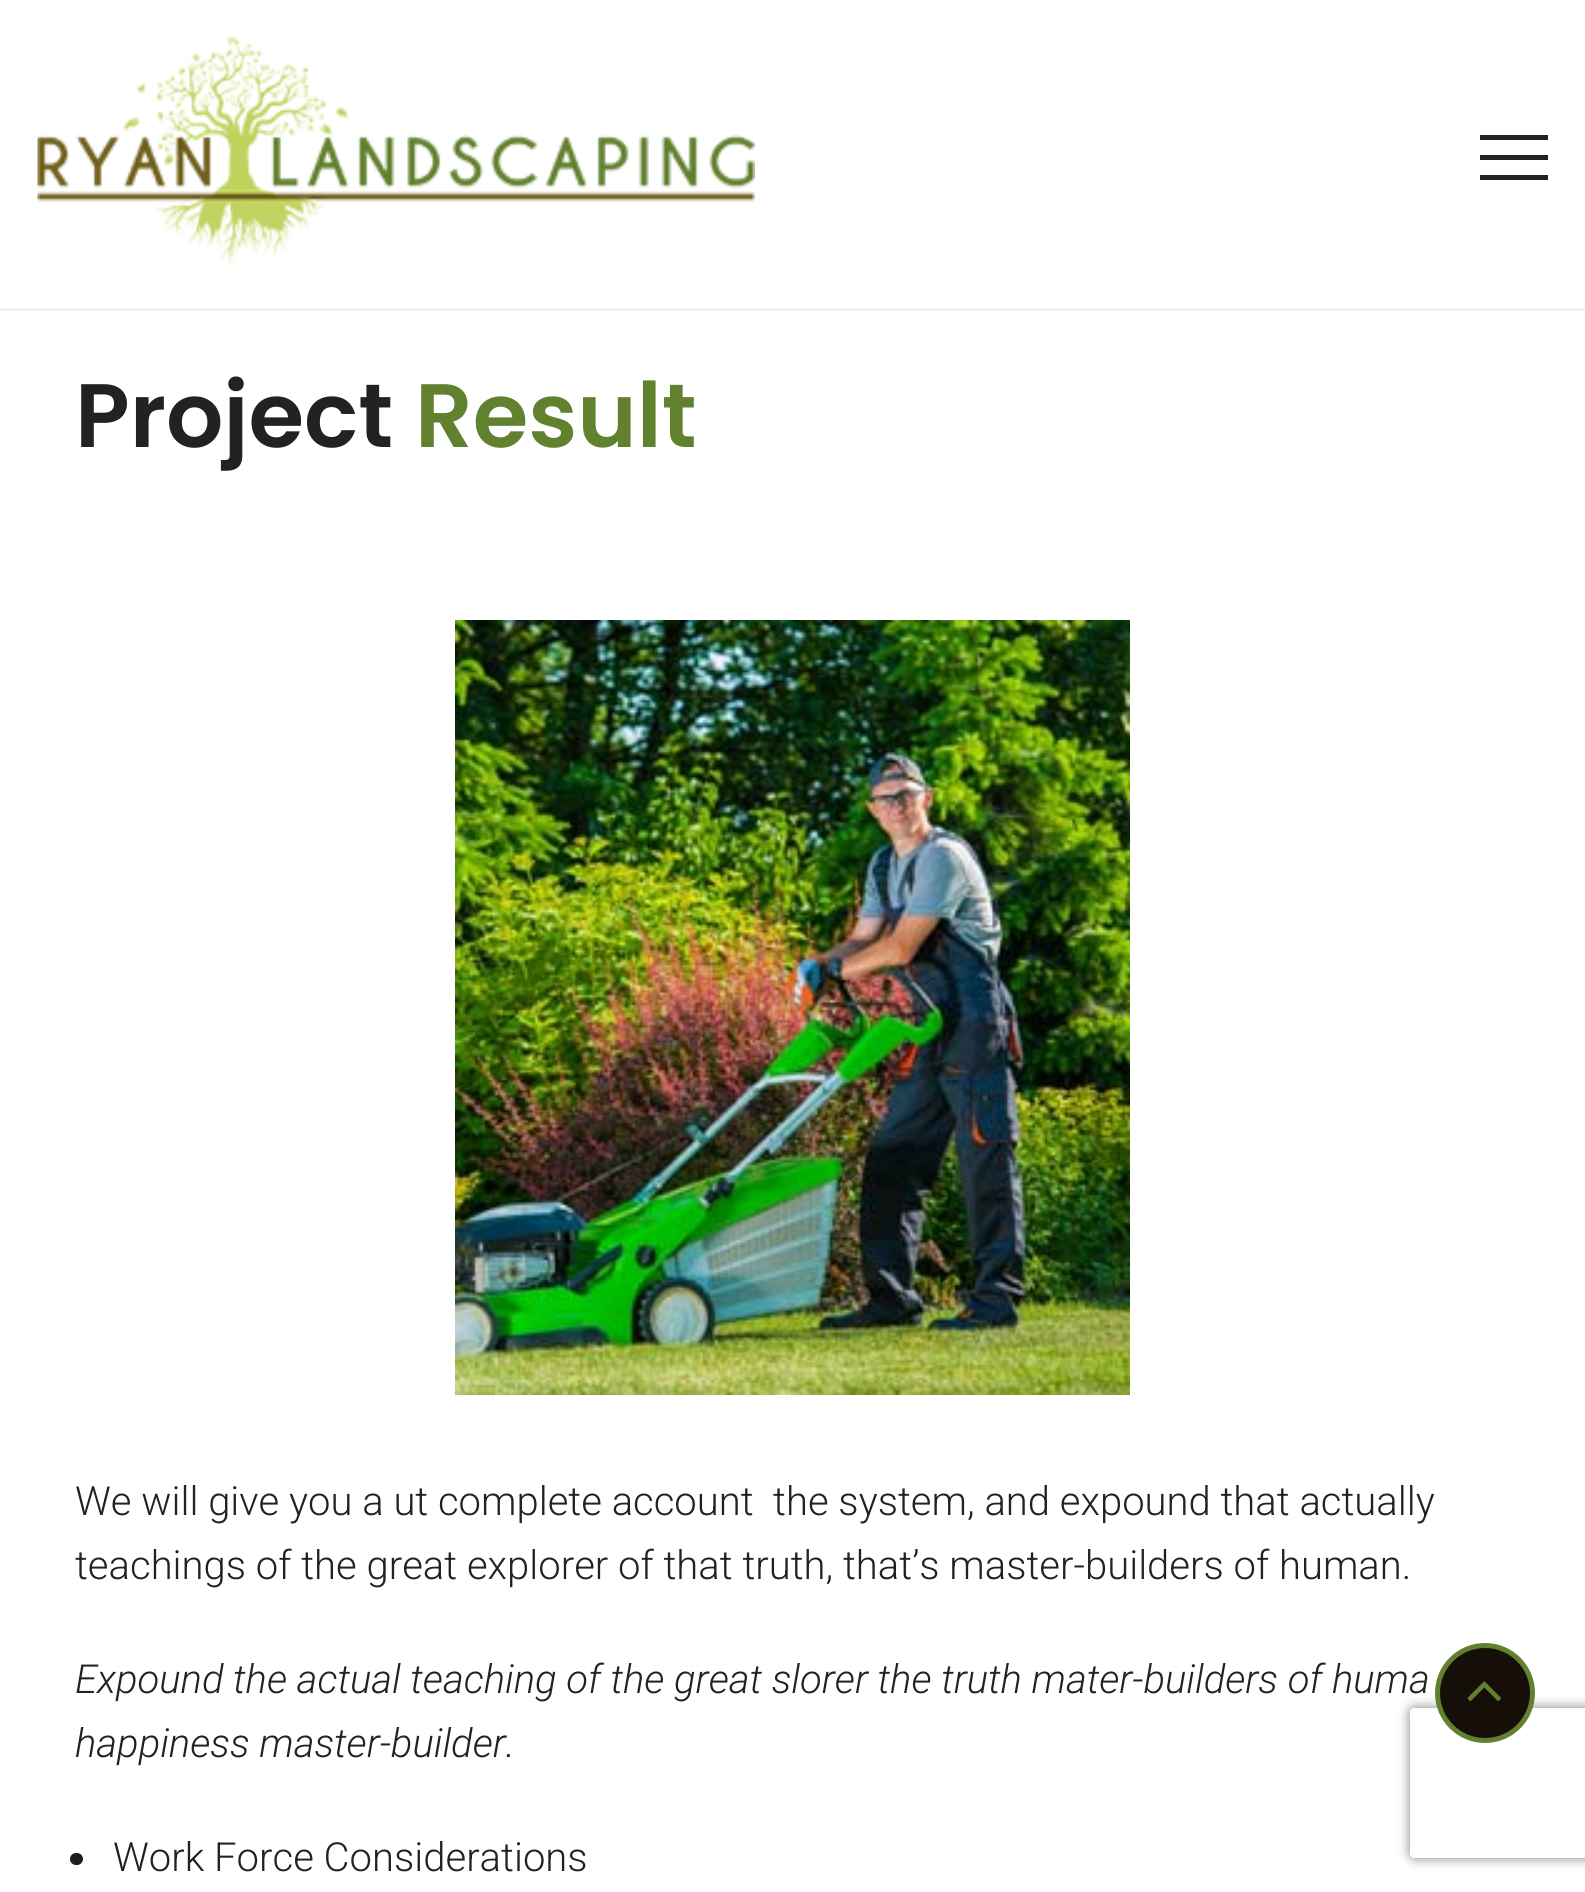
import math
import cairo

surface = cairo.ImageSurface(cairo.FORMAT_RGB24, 1585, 1892)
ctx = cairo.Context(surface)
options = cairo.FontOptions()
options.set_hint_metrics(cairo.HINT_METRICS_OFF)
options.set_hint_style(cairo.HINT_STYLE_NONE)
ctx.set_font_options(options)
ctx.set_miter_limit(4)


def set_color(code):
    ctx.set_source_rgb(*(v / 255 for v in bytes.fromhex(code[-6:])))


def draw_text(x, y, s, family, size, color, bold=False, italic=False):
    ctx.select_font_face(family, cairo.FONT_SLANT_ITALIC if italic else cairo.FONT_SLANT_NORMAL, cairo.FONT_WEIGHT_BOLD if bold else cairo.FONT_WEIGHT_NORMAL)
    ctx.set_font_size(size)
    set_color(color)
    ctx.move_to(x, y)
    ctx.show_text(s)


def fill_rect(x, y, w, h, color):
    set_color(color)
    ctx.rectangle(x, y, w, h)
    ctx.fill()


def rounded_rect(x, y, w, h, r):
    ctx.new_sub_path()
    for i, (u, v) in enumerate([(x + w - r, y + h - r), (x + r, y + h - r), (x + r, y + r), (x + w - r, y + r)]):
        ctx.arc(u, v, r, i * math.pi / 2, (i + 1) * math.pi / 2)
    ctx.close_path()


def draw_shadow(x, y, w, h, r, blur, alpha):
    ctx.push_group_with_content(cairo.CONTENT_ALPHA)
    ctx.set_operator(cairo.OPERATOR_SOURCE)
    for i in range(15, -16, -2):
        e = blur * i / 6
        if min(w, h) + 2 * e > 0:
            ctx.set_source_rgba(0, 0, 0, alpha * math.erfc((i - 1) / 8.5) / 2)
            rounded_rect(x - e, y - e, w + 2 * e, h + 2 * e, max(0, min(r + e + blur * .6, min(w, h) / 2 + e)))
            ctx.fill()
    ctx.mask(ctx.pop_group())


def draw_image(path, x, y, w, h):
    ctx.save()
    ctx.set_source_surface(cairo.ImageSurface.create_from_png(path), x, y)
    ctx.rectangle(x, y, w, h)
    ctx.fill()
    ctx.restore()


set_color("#ffffff")
ctx.paint()
fill_rect(0, 308, 1585, 3, "#f2f2f2")
draw_image("assets/img1.png", 37, 37, 718, 228)
fill_rect(1480, 155, 68, 5, "#222222")
fill_rect(1480, 135, 68, 5, "#222222")
fill_rect(1480, 175, 68, 5, "#222222")
draw_text(75, 447, "Project", "Poppins SemiBold", 90, "#222222")
draw_text(415, 447, "Result", "Poppins SemiBold", 90, "#61812e")
draw_image("assets/img2.png", 455, 620, 675, 775)
draw_text(75, 1515, "We will give you a ut complete account  the system, and expound that actually", "Roboto Light", 40, "#222222")
draw_text(75, 1579, "teachings of the great explorer of that truth, that’s master-builders of human.", "Roboto Light", 40, "#222222")
draw_text(75, 1693, "Expound the actual teaching of the great slorer the truth mater-builders of huma", "Roboto Light", 40, "#222222", italic=True)
draw_text(75, 1757, "happiness master-builder.", "Roboto Light", 40, "#222222", italic=True)
set_color("#1d1d1d")
rounded_rect(70, 1853, 13, 12, 6)
ctx.fill()
draw_text(113, 1871, "Work Force Considerations", "Roboto Light", 40, "#222222")
ctx.save()
ctx.set_fill_rule(cairo.FILL_RULE_EVEN_ODD)
ctx.new_path()
ctx.move_to(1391, 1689)
ctx.line_to(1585, 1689)
ctx.line_to(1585, 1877)
ctx.line_to(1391, 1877)
ctx.close_path()
ctx.move_to(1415, 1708)
ctx.line_to(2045, 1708)
ctx.curve_to(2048, 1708, 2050, 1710, 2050, 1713)
ctx.line_to(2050, 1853)
ctx.curve_to(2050, 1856, 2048, 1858, 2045, 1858)
ctx.line_to(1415, 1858)
ctx.curve_to(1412, 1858, 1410, 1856, 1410, 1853)
ctx.line_to(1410, 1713)
ctx.curve_to(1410, 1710, 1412, 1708, 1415, 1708)
ctx.close_path()
ctx.clip()
set_color("#808080")
draw_shadow(1410, 1708, 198, 150, 5, 6, 1)
ctx.restore()
set_color("#160f09")
ctx.arc(1485, 1693, 47.5, 0, 2 * math.pi)
ctx.fill_preserve()
set_color("#61812e")
ctx.set_line_width(5)
ctx.stroke()
draw_image("assets/img3.png", 1467, 1681, 34, 20)
surface.write_to_png("output.png")
